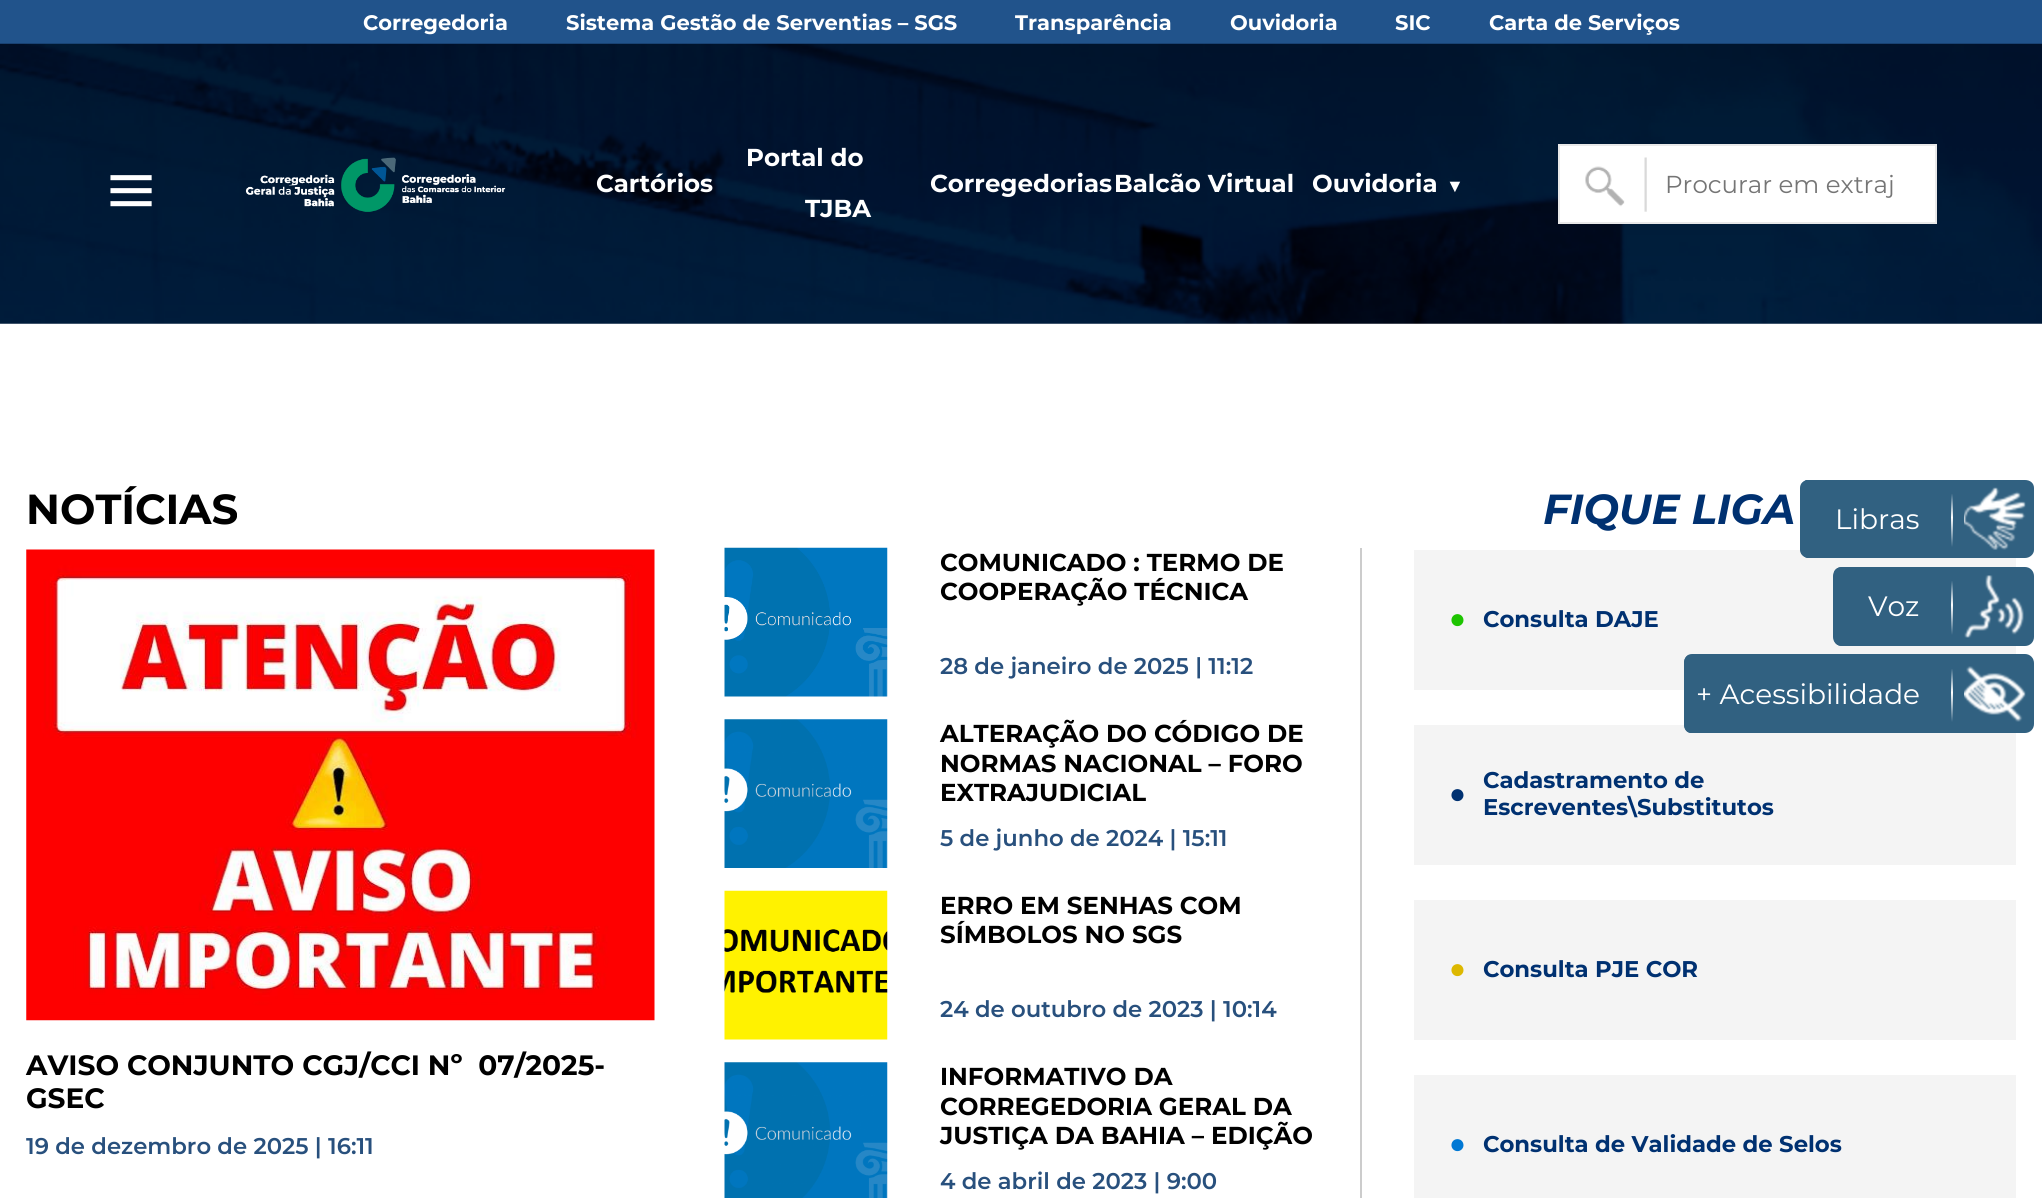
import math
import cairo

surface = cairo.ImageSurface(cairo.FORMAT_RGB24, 2042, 1198)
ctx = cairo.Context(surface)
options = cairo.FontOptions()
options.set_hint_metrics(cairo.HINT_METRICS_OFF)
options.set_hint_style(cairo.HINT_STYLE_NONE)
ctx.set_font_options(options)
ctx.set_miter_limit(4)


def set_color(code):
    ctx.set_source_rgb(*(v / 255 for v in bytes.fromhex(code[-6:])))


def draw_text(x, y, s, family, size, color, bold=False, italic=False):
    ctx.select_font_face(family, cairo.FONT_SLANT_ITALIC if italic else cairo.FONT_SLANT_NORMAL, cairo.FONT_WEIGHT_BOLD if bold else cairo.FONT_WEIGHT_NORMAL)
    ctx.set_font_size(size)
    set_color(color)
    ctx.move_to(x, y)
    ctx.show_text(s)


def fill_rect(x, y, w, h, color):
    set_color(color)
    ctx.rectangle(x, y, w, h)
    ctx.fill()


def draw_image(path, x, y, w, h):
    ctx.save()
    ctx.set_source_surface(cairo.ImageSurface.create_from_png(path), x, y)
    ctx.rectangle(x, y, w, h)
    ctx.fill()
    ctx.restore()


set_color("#ffffff")
ctx.paint()
fill_rect(0, 0, 2042, 44, "#21538b")
draw_text(363, 30, "Corregedoria", "Montserrat", 21, "#ffffff", bold=True)
draw_text(566, 30, "Sistema Gestão de Serventias – SGS", "Montserrat", 21, "#ffffff", bold=True)
draw_text(1015, 30, "Transparência", "Montserrat", 21, "#ffffff", bold=True)
draw_text(1230, 30, "Ouvidoria", "Montserrat", 21, "#ffffff", bold=True)
draw_text(1395, 30, "SIC", "Montserrat", 21, "#ffffff", bold=True)
draw_text(1489, 30, "Carta de Serviços", "Montserrat", 21, "#ffffff", bold=True)
draw_image("assets/img1.png", 0, 43, 2042, 281)
ctx.save()
ctx.translate(119, 171)
ctx.rotate(90 * math.pi / 180)
draw_text(0, 0, "|", "Montserrat SemiBold", 44, "#ffffff")
ctx.restore()
ctx.save()
ctx.translate(119, 184)
ctx.rotate(90 * math.pi / 180)
draw_text(0, 0, "|", "Montserrat SemiBold", 44, "#ffffff")
ctx.restore()
ctx.save()
ctx.translate(119, 197)
ctx.rotate(90 * math.pi / 180)
draw_text(0, 0, "|", "Montserrat SemiBold", 44, "#ffffff")
ctx.restore()
draw_image("assets/img2.png", 245, 157, 261, 55)
draw_text(596, 192, "Cartórios", "Montserrat", 24.5, "#ffffff", bold=True)
draw_text(746, 166, "Portal do", "Montserrat", 24.5, "#ffffff", bold=True)
draw_text(805, 217, "TJBA", "Montserrat", 24.5, "#ffffff", bold=True)
draw_text(930, 192, "Corregedorias", "Montserrat", 24.5, "#ffffff", bold=True)
draw_text(1114, 192, "Balcão Virtual", "Montserrat", 24.5, "#ffffff", bold=True)
draw_text(1312, 192, "Ouvidoria", "Montserrat", 24.5, "#ffffff", bold=True)
draw_text(1446, 192, "▼", "Liberation Serif", 18, "#ffffff", bold=True)
fill_rect(1560, 146, 375, 76, "#ffffff")
draw_image("assets/img3.png", 1585, 157, 62, 55)
ctx.rectangle(1559, 145, 377, 78)
set_color("#e9e9e9")
ctx.stroke()
draw_text(1665, 193, "Procurar em extraj", "Montserrat", 24.5, "#757575")
draw_text(26, 524, "NOTÍCIAS", "Montserrat", 42, "#000000", bold=True)
draw_image("assets/img4.png", 26, 549, 629, 472)
draw_text(26, 1075, "AVISO CONJUNTO CGJ/CCI Nº  07/2025-", "Montserrat", 28, "#000000", bold=True)
draw_text(26, 1108, "GSEC", "Montserrat", 28, "#000000", bold=True)
draw_text(26, 1154, "19 de dezembro de 2025 | 16:11", "Montserrat SemiBold", 22.75, "#28507d")
draw_image("assets/img5.png", 724, 547, 164, 150)
draw_text(940, 571, "COMUNICADO : TERMO DE", "Montserrat", 24.5, "#000000", bold=True)
draw_text(940, 600, "COOPERAÇÃO TÉCNICA", "Montserrat", 24.5, "#000000", bold=True)
draw_text(940, 674, "28 de janeiro de 2025 | 11:12", "Montserrat SemiBold", 22.75, "#28507d")
draw_image("assets/img6.png", 724, 719, 164, 149)
draw_text(940, 742, "ALTERAÇÃO DO CÓDIGO DE", "Montserrat", 24.5, "#000000", bold=True)
draw_text(940, 772, "NORMAS NACIONAL – FORO", "Montserrat", 24.5, "#000000", bold=True)
draw_text(940, 801, "EXTRAJUDICIAL", "Montserrat", 24.5, "#000000", bold=True)
draw_text(940, 846, "5 de junho de 2024 | 15:11", "Montserrat SemiBold", 22.75, "#28507d")
draw_image("assets/img7.png", 724, 890, 164, 150)
draw_text(940, 914, "ERRO EM SENHAS COM", "Montserrat", 24.5, "#000000", bold=True)
draw_text(940, 943, "SÍMBOLOS NO SGS", "Montserrat", 24.5, "#000000", bold=True)
draw_text(940, 1017, "24 de outubro de 2023 | 10:14", "Montserrat SemiBold", 22.75, "#28507d")
draw_image("assets/img8.png", 724, 1062, 164, 136)
draw_text(940, 1085, "INFORMATIVO DA", "Montserrat", 24.5, "#000000", bold=True)
draw_text(940, 1115, "CORREGEDORIA GERAL DA", "Montserrat", 24.5, "#000000", bold=True)
draw_text(940, 1144, "JUSTIÇA DA BAHIA – EDIÇÃO", "Montserrat", 24.5, "#000000", bold=True)
draw_text(940, 1189, "4 de abril de 2023 | 9:00", "Montserrat SemiBold", 22.75, "#28507d")
fill_rect(1360, 548, 2, 650, "#cccccc")
draw_text(1543, 524, "FIQUE LIGA", "Montserrat", 42, "#003171", bold=True, italic=True)
fill_rect(1414, 550, 602, 140, "#f4f4f4")
draw_text(1449, 628, "●", "Liberation Serif", 28, "#1dc400")
draw_text(1483, 627, "Consulta DAJE", "Montserrat", 22.75, "#003171", bold=True)
fill_rect(1414, 725, 602, 140, "#f4f4f4")
draw_text(1449, 803, "●", "Liberation Serif", 28, "#003171")
draw_text(1483, 788, "Cadastramento de", "Montserrat", 22.75, "#003171", bold=True)
draw_text(1483, 815, "Escreventes\\Substitutos", "Montserrat", 22.75, "#003171", bold=True)
fill_rect(1414, 900, 602, 140, "#f4f4f4")
draw_text(1449, 978, "●", "Liberation Serif", 28, "#ddb800")
draw_text(1483, 977, "Consulta PJE COR", "Montserrat", 22.75, "#003171", bold=True)
fill_rect(1414, 1075, 602, 123, "#f4f4f4")
draw_text(1449, 1153, "●", "Liberation Serif", 28, "#0078d4")
draw_text(1483, 1152, "Consulta de Validade de Selos", "Montserrat", 22.75, "#003171", bold=True)
set_color("#316181")
ctx.new_path()
ctx.move_to(2025, 480)
ctx.line_to(1809, 480)
ctx.curve_to(1804, 480, 1800, 483, 1800, 488)
ctx.line_to(1800, 550)
ctx.curve_to(1800, 554, 1804, 558, 1809, 558)
ctx.line_to(2025, 558)
ctx.curve_to(2030, 558, 2034, 554, 2034, 550)
ctx.line_to(2034, 488)
ctx.curve_to(2034, 483, 2030, 480, 2025, 480)
ctx.close_path()
ctx.fill()
ctx.new_path()
ctx.move_to(1807, 558)
ctx.line_to(1955, 558)
ctx.curve_to(1960, 558, 1964, 554, 1964, 549)
ctx.line_to(1964, 489)
ctx.curve_to(1964, 484, 1960, 480, 1955, 480)
ctx.line_to(1806, 480)
ctx.curve_to(1804, 481, 1802, 483, 1801, 485)
ctx.line_to(1801, 553)
ctx.curve_to(1802, 555, 1804, 557, 1807, 558)
ctx.close_path()
ctx.fill()
draw_text(1835, 529, "Libras", "Montserrat", 28, "#ffffff")
gradient = cairo.LinearGradient(1952, 558, 1952, 480)
gradient.add_color_stop_rgba(0.14, 0.192, 0.38, 0.506, 1)
gradient.add_color_stop_rgba(0.52, 1, 1, 1, 1)
gradient.add_color_stop_rgba(0.83, 0.192, 0.38, 0.506, 1)
ctx.set_source(gradient)
ctx.rectangle(1951, 494, 2, 53)
ctx.fill()
draw_image("assets/img9.png", 1964, 487, 62, 63)
set_color("#316181")
ctx.new_path()
ctx.move_to(2025, 567)
ctx.line_to(1842, 567)
ctx.curve_to(1837, 567, 1833, 571, 1833, 576)
ctx.line_to(1833, 637)
ctx.curve_to(1833, 642, 1837, 646, 1842, 646)
ctx.line_to(2025, 646)
ctx.curve_to(2030, 646, 2034, 642, 2034, 637)
ctx.line_to(2034, 576)
ctx.curve_to(2034, 571, 2030, 567, 2025, 567)
ctx.close_path()
ctx.fill()
ctx.new_path()
ctx.move_to(1957, 646)
ctx.curve_to(1961, 645, 1964, 641, 1964, 637)
ctx.line_to(1964, 576)
ctx.curve_to(1964, 571, 1960, 567, 1955, 567)
ctx.line_to(1842, 567)
ctx.curve_to(1838, 567, 1835, 569, 1834, 572)
ctx.line_to(1834, 640)
ctx.curve_to(1835, 644, 1838, 646, 1842, 646)
ctx.close_path()
ctx.fill()
draw_text(1868, 616, "Voz", "Montserrat", 28, "#ffffff")
gradient = cairo.LinearGradient(1952, 646, 1952, 567)
gradient.add_color_stop_rgba(0.14, 0.192, 0.38, 0.506, 1)
gradient.add_color_stop_rgba(0.52, 1, 1, 1, 1)
gradient.add_color_stop_rgba(0.83, 0.192, 0.38, 0.506, 1)
ctx.set_source(gradient)
ctx.rectangle(1951, 581, 2, 54)
ctx.fill()
draw_image("assets/img10.png", 1964, 575, 60, 63)
set_color("#316181")
ctx.new_path()
ctx.move_to(2025, 654)
ctx.line_to(1692, 654)
ctx.curve_to(1687, 654, 1684, 658, 1684, 663)
ctx.line_to(1684, 724)
ctx.curve_to(1684, 729, 1687, 733, 1692, 733)
ctx.line_to(2025, 733)
ctx.curve_to(2030, 733, 2034, 729, 2034, 724)
ctx.line_to(2034, 663)
ctx.curve_to(2034, 658, 2030, 654, 2025, 654)
ctx.close_path()
ctx.fill()
ctx.new_path()
ctx.move_to(1690, 733)
ctx.line_to(1955, 733)
ctx.curve_to(1960, 733, 1964, 729, 1964, 724)
ctx.line_to(1964, 664)
ctx.curve_to(1964, 659, 1960, 655, 1955, 655)
ctx.line_to(1689, 655)
ctx.curve_to(1686, 656, 1684, 659, 1684, 663)
ctx.line_to(1684, 724)
ctx.curve_to(1684, 729, 1686, 732, 1690, 733)
ctx.close_path()
ctx.fill()
draw_text(1696, 704, "+ Acessibilidade", "Montserrat", 28, "#ffffff")
gradient = cairo.LinearGradient(1952, 733, 1952, 655)
gradient.add_color_stop_rgba(0.14, 0.192, 0.38, 0.506, 1)
gradient.add_color_stop_rgba(0.52, 1, 1, 1, 1)
gradient.add_color_stop_rgba(0.83, 0.192, 0.38, 0.506, 1)
ctx.set_source(gradient)
ctx.rectangle(1951, 669, 2, 53)
ctx.fill()
draw_image("assets/img11.png", 1964, 666, 62, 56)
surface.write_to_png("output.png")
